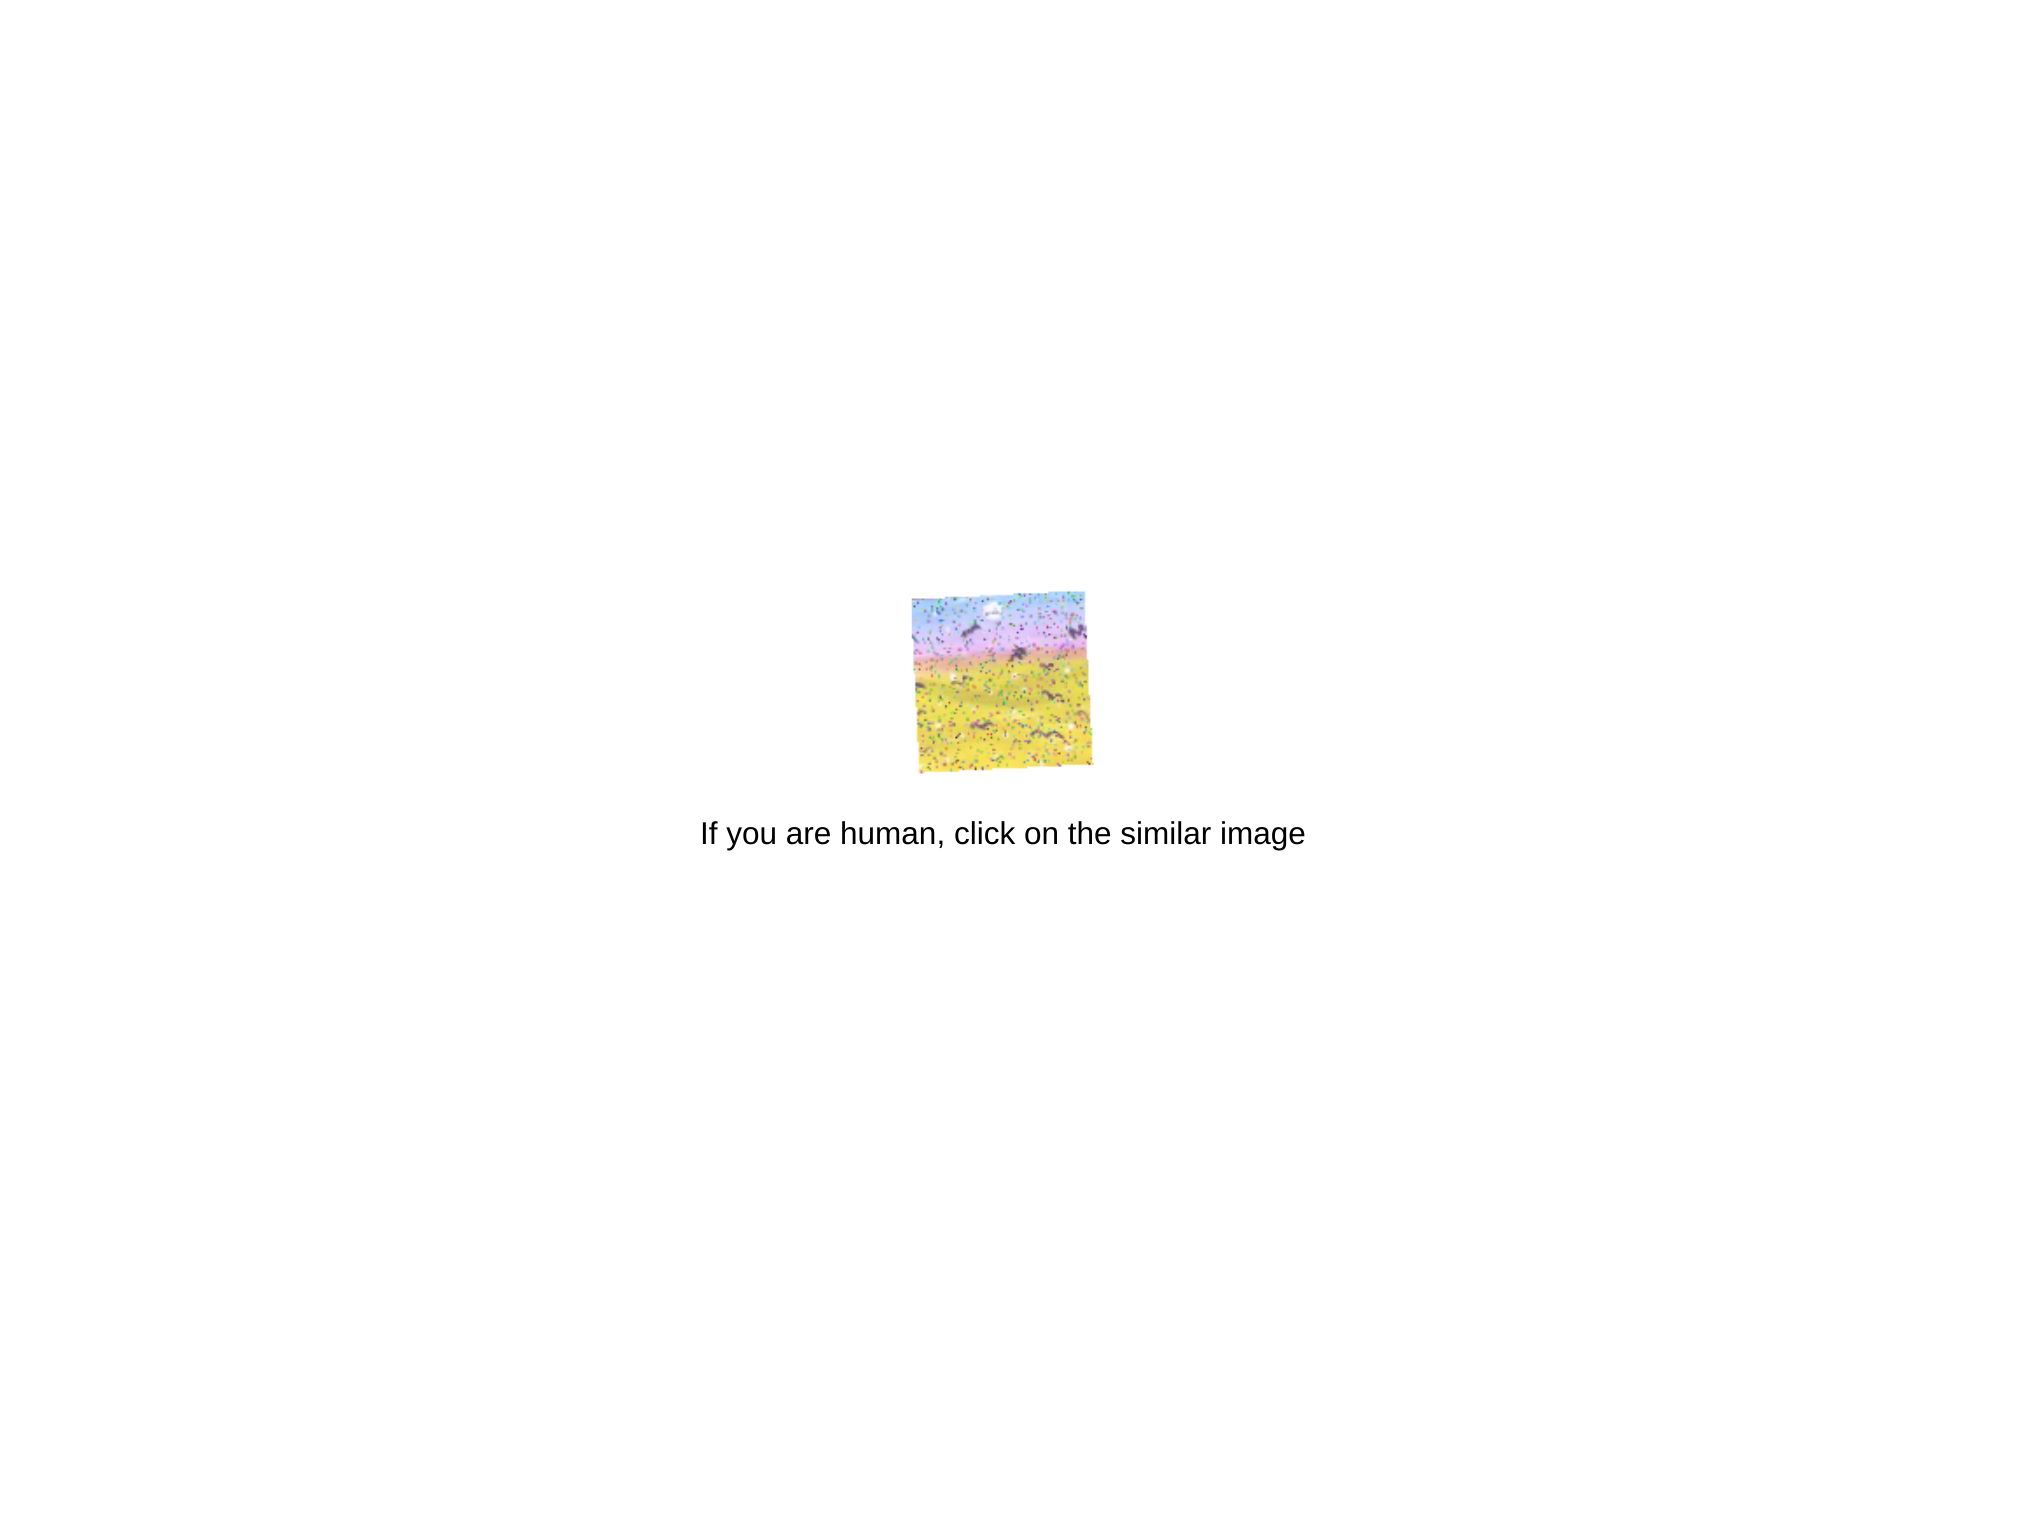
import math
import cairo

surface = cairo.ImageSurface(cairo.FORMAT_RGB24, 2038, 1530)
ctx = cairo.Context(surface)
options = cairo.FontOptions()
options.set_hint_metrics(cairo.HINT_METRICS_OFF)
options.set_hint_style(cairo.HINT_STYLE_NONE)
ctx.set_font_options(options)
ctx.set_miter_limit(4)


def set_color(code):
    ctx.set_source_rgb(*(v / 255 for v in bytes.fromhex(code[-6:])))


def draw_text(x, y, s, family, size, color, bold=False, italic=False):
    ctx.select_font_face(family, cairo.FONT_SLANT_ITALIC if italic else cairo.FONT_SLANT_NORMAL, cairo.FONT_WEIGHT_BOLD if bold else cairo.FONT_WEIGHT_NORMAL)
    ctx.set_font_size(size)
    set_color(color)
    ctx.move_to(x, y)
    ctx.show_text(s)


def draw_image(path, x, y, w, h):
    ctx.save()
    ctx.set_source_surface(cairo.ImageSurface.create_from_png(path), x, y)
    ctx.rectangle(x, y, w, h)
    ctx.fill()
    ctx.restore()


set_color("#ffffff")
ctx.paint()
draw_image("assets/img1.png", 911, 591, 183, 183)
draw_text(700, 844, "If you are human, click on the similar image", "Liberation Sans", 31.5, "#000000")
surface.write_to_png("output.png")
